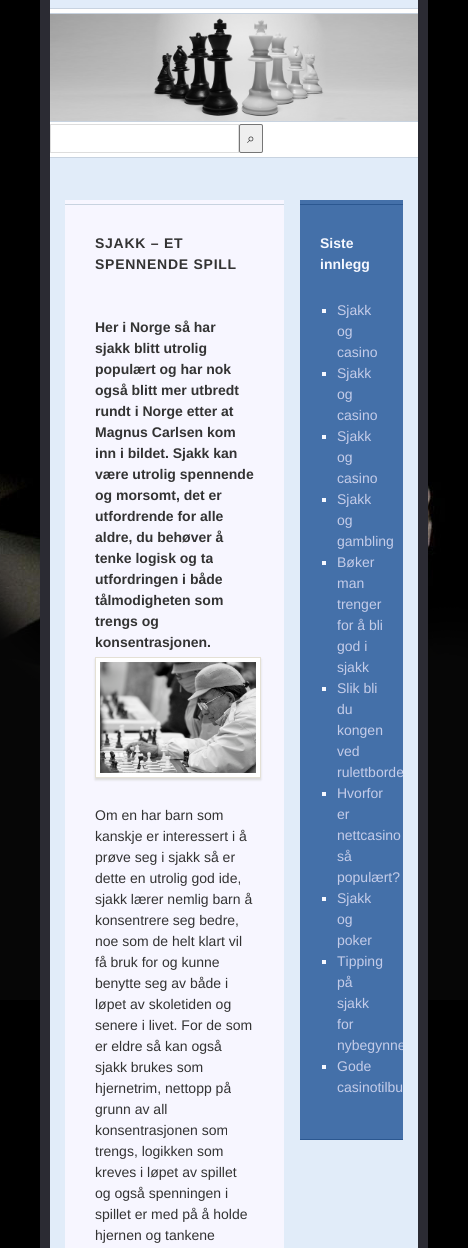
import math
import cairo

surface = cairo.ImageSurface(cairo.FORMAT_RGB24, 468, 1248)
ctx = cairo.Context(surface)
options = cairo.FontOptions()
options.set_hint_metrics(cairo.HINT_METRICS_OFF)
options.set_hint_style(cairo.HINT_STYLE_NONE)
ctx.set_font_options(options)
ctx.set_miter_limit(4)


def set_color(code):
    ctx.set_source_rgb(*(v / 255 for v in bytes.fromhex(code[-6:])))


def draw_text(x, y, s, family, size, color, bold=False, italic=False):
    ctx.select_font_face(family, cairo.FONT_SLANT_ITALIC if italic else cairo.FONT_SLANT_NORMAL, cairo.FONT_WEIGHT_BOLD if bold else cairo.FONT_WEIGHT_NORMAL)
    ctx.set_font_size(size)
    set_color(color)
    ctx.move_to(x, y)
    ctx.show_text(s)


def draw_spaced(x, y, s, letter, word):
    ctx.move_to(x, y)
    for ch in s:
        ctx.show_text(ch)
        ctx.rel_move_to(letter + word * (ch == ' '), 0)


def fill_rect(x, y, w, h, color):
    set_color(color)
    ctx.rectangle(x, y, w, h)
    ctx.fill()


def rounded_rect(x, y, w, h, r):
    ctx.new_sub_path()
    for i, (u, v) in enumerate([(x + w - r, y + h - r), (x + r, y + h - r), (x + r, y + r), (x + w - r, y + r)]):
        ctx.arc(u, v, r, i * math.pi / 2, (i + 1) * math.pi / 2)
    ctx.close_path()


def draw_shadow(x, y, w, h, r, blur, alpha):
    ctx.push_group_with_content(cairo.CONTENT_ALPHA)
    ctx.set_operator(cairo.OPERATOR_SOURCE)
    for i in range(15, -16, -2):
        e = blur * i / 6
        if min(w, h) + 2 * e > 0:
            ctx.set_source_rgba(0, 0, 0, alpha * math.erfc((i - 1) / 8.5) / 2)
            rounded_rect(x - e, y - e, w + 2 * e, h + 2 * e, max(0, min(r + e + blur * .6, min(w, h) / 2 + e)))
            ctx.fill()
    ctx.mask(ctx.pop_group())


def draw_image(path, x, y, w, h):
    ctx.save()
    ctx.set_source_surface(cairo.ImageSurface.create_from_png(path), x, y)
    ctx.rectangle(x, y, w, h)
    ctx.fill()
    ctx.restore()


set_color("#000000")
ctx.paint()
draw_image("assets/img1.png", 0, 18, 468, 982)
fill_rect(40, 0, 388, 1248, "#2b2b33")
fill_rect(50, 9, 368, 148, "#ffffff")
fill_rect(50, 0, 368, 8, "#e1ecf9")
fill_rect(50, 8, 368, 1, "#c8d3e0")
fill_rect(50, 13, 368, 1, "#c8d3e0")
draw_image("assets/img2.png", 50, 14, 368, 107)
fill_rect(50, 121, 368, 1, "#c8d3e0")
ctx.rectangle(50.5, 124.5, 188, 28)
set_color("#dddddd")
ctx.set_line_width(1)
ctx.stroke()
set_color("#efefef")
rounded_rect(239.5, 124.5, 23, 28, 1.5)
ctx.fill_preserve()
set_color("#767676")
ctx.stroke()
draw_text(247, 143, "⌕", "FreeSerif", 14, "#333333")
set_color("#e1ecf9")
ctx.new_path()
ctx.move_to(50, 158)
ctx.line_to(418, 158)
ctx.line_to(418, 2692)
ctx.curve_to(418, 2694, 416, 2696, 413, 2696)
ctx.line_to(55, 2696)
ctx.curve_to(52, 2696, 50, 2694, 50, 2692)
ctx.close_path()
ctx.fill()
fill_rect(50, 157, 368, 1, "#c8d3e0")
fill_rect(65, 200, 219, 1048, "#f7f6ff")
fill_rect(65, 204, 219, 1, "#c8d3e0")
ctx.select_font_face("Liberation Sans", cairo.FONT_SLANT_NORMAL, cairo.FONT_WEIGHT_BOLD)
set_color("#333333")
draw_spaced(95, 248, "SJAKK – ET", 0.75, 0)
draw_spaced(95, 269, "SPENNENDE SPILL", 0.75, 0)
draw_text(95, 332, "Her i Norge så har", "Liberation Sans", 14, "#333333", bold=True)
draw_text(95, 353, "sjakk blitt utrolig", "Liberation Sans", 14, "#333333", bold=True)
draw_text(95, 374, "populært og har nok", "Liberation Sans", 14, "#333333", bold=True)
draw_text(95, 395, "også blitt mer utbredt", "Liberation Sans", 14, "#333333", bold=True)
draw_text(95, 416, "rundt i Norge etter at", "Liberation Sans", 14, "#333333", bold=True)
draw_text(95, 437, "Magnus Carlsen kom", "Liberation Sans", 14, "#333333", bold=True)
draw_text(95, 458, "inn i bildet. Sjakk kan", "Liberation Sans", 14, "#333333", bold=True)
draw_text(95, 479, "være utrolig spennende", "Liberation Sans", 14, "#333333", bold=True)
draw_text(95, 500, "og morsomt, det er", "Liberation Sans", 14, "#333333", bold=True)
draw_text(95, 521, "utfordrende for alle", "Liberation Sans", 14, "#333333", bold=True)
draw_text(95, 542, "aldre, du behøver å", "Liberation Sans", 14, "#333333", bold=True)
draw_text(95, 563, "tenke logisk og ta", "Liberation Sans", 14, "#333333", bold=True)
draw_text(95, 584, "utfordringen i både", "Liberation Sans", 14, "#333333", bold=True)
draw_text(95, 605, "tålmodigheten som", "Liberation Sans", 14, "#333333", bold=True)
draw_text(95, 626, "trengs og", "Liberation Sans", 14, "#333333", bold=True)
draw_text(95, 647, "konsentrasjonen.", "Liberation Sans", 14, "#333333", bold=True)
set_color("#bfbfb6")
draw_shadow(95, 659, 166, 121, 0, 1, 0.5)
set_color("#ffffff")
ctx.rectangle(95.5, 657.5, 165, 120)
ctx.fill_preserve()
set_color("#e4e0d5")
ctx.stroke()
draw_image("assets/img3.png", 100, 662, 156, 111)
draw_text(95, 820, "Om en har barn som", "Liberation Sans", 14, "#333333")
draw_text(95, 841, "kanskje er interessert i å", "Liberation Sans", 14, "#333333")
draw_text(95, 862, "prøve seg i sjakk så er", "Liberation Sans", 14, "#333333")
draw_text(95, 883, "dette en utrolig god ide,", "Liberation Sans", 14, "#333333")
draw_text(95, 904, "sjakk lærer nemlig barn å", "Liberation Sans", 14, "#333333")
draw_text(95, 925, "konsentrere seg bedre,", "Liberation Sans", 14, "#333333")
draw_text(95, 946, "noe som de helt klart vil", "Liberation Sans", 14, "#333333")
draw_text(95, 967, "få bruk for og kunne", "Liberation Sans", 14, "#333333")
draw_text(95, 988, "benytte seg av både i", "Liberation Sans", 14, "#333333")
draw_text(95, 1009, "løpet av skoletiden og", "Liberation Sans", 14, "#333333")
draw_text(95, 1030, "senere i livet. For de som", "Liberation Sans", 14, "#333333")
draw_text(95, 1051, "er eldre så kan også", "Liberation Sans", 14, "#333333")
draw_text(95, 1072, "sjakk brukes som", "Liberation Sans", 14, "#333333")
draw_text(95, 1093, "hjernetrim, nettopp på", "Liberation Sans", 14, "#333333")
draw_text(95, 1114, "grunn av all", "Liberation Sans", 14, "#333333")
draw_text(95, 1135, "konsentrasjonen som", "Liberation Sans", 14, "#333333")
draw_text(95, 1156, "trengs, logikken som", "Liberation Sans", 14, "#333333")
draw_text(95, 1177, "kreves i løpet av spillet", "Liberation Sans", 14, "#333333")
draw_text(95, 1198, "og også spenningen i", "Liberation Sans", 14, "#333333")
draw_text(95, 1219, "spillet er med på å holde", "Liberation Sans", 14, "#333333")
draw_text(95, 1240, "hjernen og tankene", "Liberation Sans", 14, "#333333")
fill_rect(300, 200, 103, 939, "#4470a9")
fill_rect(300, 1139, 103, 1, "#2b5790")
fill_rect(300, 204, 103, 1, "#2b5790")
draw_text(320, 248, "Siste", "Liberation Sans", 14, "#f6f8ff", bold=True)
draw_text(320, 269, "innlegg", "Liberation Sans", 14, "#f6f8ff", bold=True)
fill_rect(322, 309, 4, 4, "#f6f8ff")
draw_text(337, 315, "Sjakk", "Liberation Sans", 14, "#c4cce9")
draw_text(337, 336, "og", "Liberation Sans", 14, "#c4cce9")
draw_text(337, 357, "casino", "Liberation Sans", 14, "#c4cce9")
fill_rect(322, 372, 4, 4, "#f6f8ff")
draw_text(337, 378, "Sjakk", "Liberation Sans", 14, "#c4cce9")
draw_text(337, 399, "og", "Liberation Sans", 14, "#c4cce9")
draw_text(337, 420, "casino", "Liberation Sans", 14, "#c4cce9")
fill_rect(322, 435, 4, 4, "#f6f8ff")
draw_text(337, 441, "Sjakk", "Liberation Sans", 14, "#c4cce9")
draw_text(337, 462, "og", "Liberation Sans", 14, "#c4cce9")
draw_text(337, 483, "casino", "Liberation Sans", 14, "#c4cce9")
fill_rect(322, 498, 4, 4, "#f6f8ff")
draw_text(337, 504, "Sjakk", "Liberation Sans", 14, "#c4cce9")
draw_text(337, 525, "og", "Liberation Sans", 14, "#c4cce9")
draw_text(337, 546, "gambling", "Liberation Sans", 14, "#c4cce9")
fill_rect(322, 561, 4, 4, "#f6f8ff")
draw_text(337, 567, "Bøker", "Liberation Sans", 14, "#c4cce9")
draw_text(337, 588, "man", "Liberation Sans", 14, "#c4cce9")
draw_text(337, 609, "trenger", "Liberation Sans", 14, "#c4cce9")
draw_text(337, 630, "for å bli", "Liberation Sans", 14, "#c4cce9")
draw_text(337, 651, "god i", "Liberation Sans", 14, "#c4cce9")
draw_text(337, 672, "sjakk", "Liberation Sans", 14, "#c4cce9")
fill_rect(322, 687, 4, 4, "#f6f8ff")
draw_text(337, 693, "Slik bli", "Liberation Sans", 14, "#c4cce9")
draw_text(337, 714, "du", "Liberation Sans", 14, "#c4cce9")
draw_text(337, 735, "kongen", "Liberation Sans", 14, "#c4cce9")
draw_text(337, 756, "ved", "Liberation Sans", 14, "#c4cce9")
ctx.save()
ctx.rectangle(300, 200, 103, 961)
ctx.clip()
draw_text(337, 777, "rulettborde", "Liberation Sans", 14, "#c4cce9")
ctx.restore()
fill_rect(322, 792, 4, 4, "#f6f8ff")
draw_text(337, 798, "Hvorfor", "Liberation Sans", 14, "#c4cce9")
draw_text(337, 819, "er", "Liberation Sans", 14, "#c4cce9")
draw_text(337, 840, "nettcasino", "Liberation Sans", 14, "#c4cce9")
draw_text(337, 861, "så", "Liberation Sans", 14, "#c4cce9")
draw_text(337, 882, "populært?", "Liberation Sans", 14, "#c4cce9")
fill_rect(322, 897, 4, 4, "#f6f8ff")
draw_text(337, 903, "Sjakk", "Liberation Sans", 14, "#c4cce9")
draw_text(337, 924, "og", "Liberation Sans", 14, "#c4cce9")
draw_text(337, 945, "poker", "Liberation Sans", 14, "#c4cce9")
fill_rect(322, 960, 4, 4, "#f6f8ff")
draw_text(337, 966, "Tipping", "Liberation Sans", 14, "#c4cce9")
draw_text(337, 987, "på", "Liberation Sans", 14, "#c4cce9")
draw_text(337, 1008, "sjakk", "Liberation Sans", 14, "#c4cce9")
draw_text(337, 1029, "for", "Liberation Sans", 14, "#c4cce9")
ctx.save()
ctx.rectangle(300, 200, 103, 961)
ctx.clip()
draw_text(337, 1050, "nybegynne", "Liberation Sans", 14, "#c4cce9")
ctx.restore()
fill_rect(322, 1065, 4, 4, "#f6f8ff")
draw_text(337, 1071, "Gode", "Liberation Sans", 14, "#c4cce9")
draw_text(337, 1092, "casinotilbu", "Liberation Sans", 14, "#c4cce9")
surface.write_to_png("output.png")
